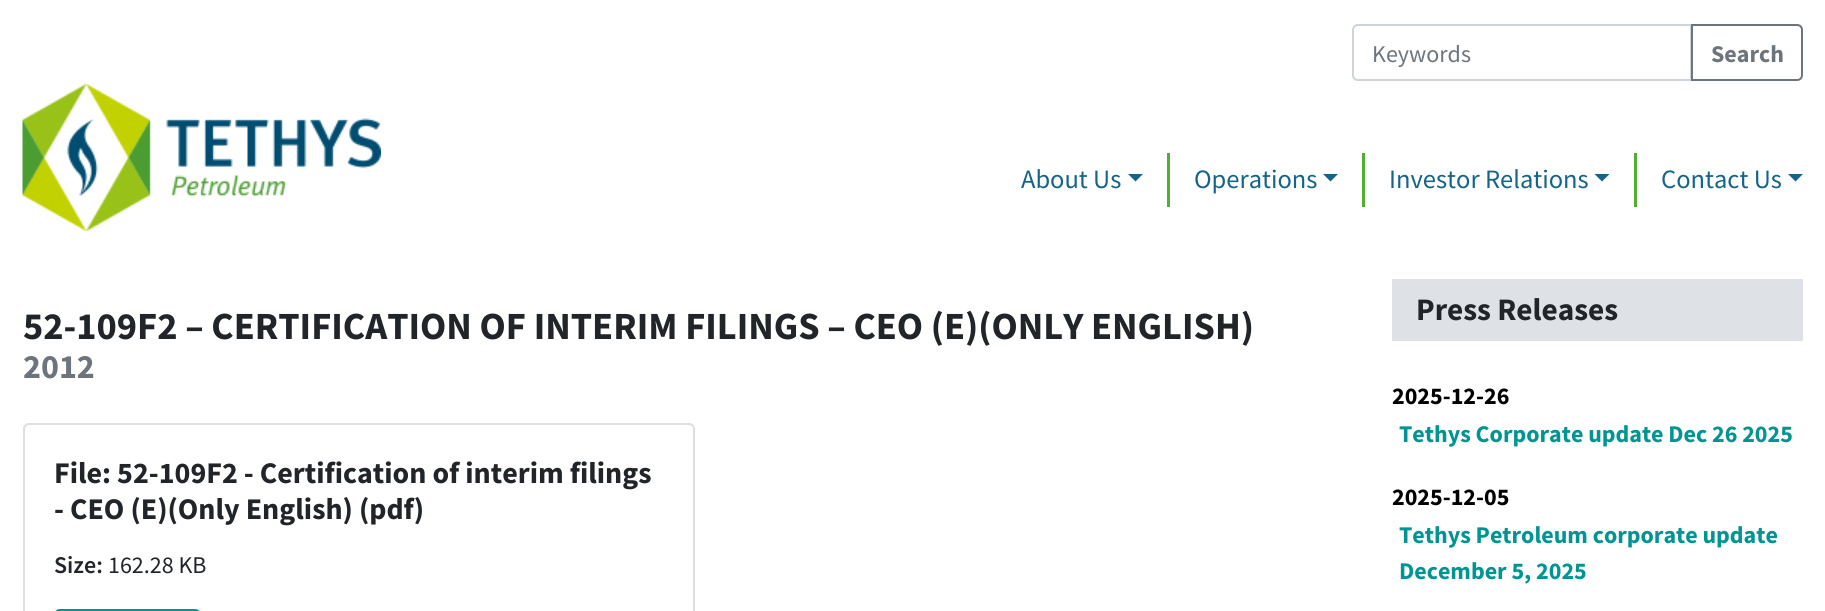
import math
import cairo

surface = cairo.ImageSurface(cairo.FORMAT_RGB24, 1825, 611)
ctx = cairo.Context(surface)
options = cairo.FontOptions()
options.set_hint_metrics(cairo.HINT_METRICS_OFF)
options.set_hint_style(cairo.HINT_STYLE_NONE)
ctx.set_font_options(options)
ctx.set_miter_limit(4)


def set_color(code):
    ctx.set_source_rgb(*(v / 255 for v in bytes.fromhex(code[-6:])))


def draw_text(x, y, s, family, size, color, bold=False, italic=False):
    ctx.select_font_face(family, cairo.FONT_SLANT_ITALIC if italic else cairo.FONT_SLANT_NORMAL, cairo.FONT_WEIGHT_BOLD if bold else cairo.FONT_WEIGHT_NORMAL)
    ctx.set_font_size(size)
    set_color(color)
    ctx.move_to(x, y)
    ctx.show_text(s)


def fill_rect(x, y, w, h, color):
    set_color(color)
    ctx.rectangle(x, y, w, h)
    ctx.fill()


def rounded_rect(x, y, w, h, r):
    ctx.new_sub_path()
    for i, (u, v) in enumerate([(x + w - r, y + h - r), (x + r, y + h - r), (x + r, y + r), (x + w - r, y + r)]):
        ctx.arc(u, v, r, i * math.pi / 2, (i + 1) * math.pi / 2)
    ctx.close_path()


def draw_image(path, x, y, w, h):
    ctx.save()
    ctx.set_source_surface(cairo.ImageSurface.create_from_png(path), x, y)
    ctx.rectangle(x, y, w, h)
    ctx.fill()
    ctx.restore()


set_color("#ffffff")
ctx.paint()
draw_image("assets/img1.png", 22, 84, 359, 147)
ctx.new_path()
ctx.move_to(1358, 25)
ctx.line_to(1691, 25)
ctx.line_to(1691, 80)
ctx.line_to(1358, 80)
ctx.curve_to(1355, 80, 1353, 78, 1353, 75)
ctx.line_to(1353, 30)
ctx.curve_to(1353, 27, 1355, 25, 1358, 25)
ctx.close_path()
set_color("#ced4da")
ctx.stroke()
draw_text(1372, 62, "Keywords", "Source Sans Pro", 24, "#6c757d")
ctx.new_path()
ctx.move_to(1692, 25)
ctx.line_to(1797, 25)
ctx.curve_to(1800, 25, 1802, 27, 1802, 30)
ctx.line_to(1802, 75)
ctx.curve_to(1802, 78, 1800, 80, 1797, 80)
ctx.line_to(1692, 80)
ctx.close_path()
ctx.stroke()
draw_text(1711, 62, "Search", "Source Sans Pro", 24, "#6c757d", bold=True)
fill_rect(1167, 153, 3, 54, "#55ae30")
draw_text(1021, 188, "About Us", "Source Sans Pro", 26.5, "#14638a")
ctx.new_path()
ctx.move_to(1128, 174)
ctx.line_to(1143, 174)
ctx.line_to(1135.5, 181.5)
ctx.close_path()
ctx.fill()
fill_rect(1362, 153, 3, 54, "#55ae30")
draw_text(1194, 188, "Operations", "Source Sans Pro", 26.5, "#14638a")
ctx.new_path()
ctx.move_to(1323, 174)
ctx.line_to(1338, 174)
ctx.line_to(1330.5, 181.5)
ctx.close_path()
ctx.fill()
fill_rect(1634, 153, 3, 54, "#55ae30")
draw_text(1389, 188, "Investor Relations", "Source Sans Pro", 26.5, "#14638a")
ctx.new_path()
ctx.move_to(1594.5, 174)
ctx.line_to(1609.5, 174)
ctx.line_to(1602, 181.5)
ctx.close_path()
ctx.fill()
draw_text(1661, 188, "Contact Us", "Source Sans Pro", 26.5, "#14638a")
ctx.new_path()
ctx.move_to(1788, 174)
ctx.line_to(1803, 174)
ctx.line_to(1795.5, 181.5)
ctx.close_path()
ctx.fill()
draw_text(23, 339, "52-109F2 – CERTIFICATION OF INTERIM FILINGS – CEO (E)(ONLY ENGLISH)", "Source Sans Pro", 38.4, "#212529", bold=True)
draw_text(23, 378, "2012", "Source Sans Pro", 34, "#6c757d", bold=True)
rounded_rect(24, 424, 670, 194, 5)
set_color("#dfdfdf")
ctx.stroke()
draw_text(54, 483, "File: 52-109F2 - Certification of interim filings", "Source Sans Pro", 30, "#212529", bold=True)
draw_text(54, 519, "- CEO (E)(Only English) (pdf)", "Source Sans Pro", 30, "#212529", bold=True)
draw_text(54, 573, "Size:", "Source Sans Pro SemiBold", 24, "#212529")
draw_text(108, 573, "162.28 KB", "Source Sans Pro", 24, "#212529")
rounded_rect(55, 610, 145, 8, 5)
set_color("#009592")
ctx.stroke()
fill_rect(1392, 279, 411, 62, "#dee2e6")
draw_text(1416, 320, "Press Releases", "Source Sans Pro", 31.25, "#212529", bold=True)
draw_text(1392, 404, "2025-12-26", "Source Sans Pro", 24, "#000000", bold=True)
draw_text(1399, 442, "Tethys Corporate update Dec 26 2025", "Source Sans Pro", 24, "#009592", bold=True)
draw_text(1392, 505, "2025-12-05", "Source Sans Pro", 24, "#000000", bold=True)
draw_text(1399, 543, "Tethys Petroleum corporate update", "Source Sans Pro", 24, "#009592", bold=True)
draw_text(1399, 579, "December 5, 2025", "Source Sans Pro", 24, "#009592", bold=True)
surface.write_to_png("output.png")
